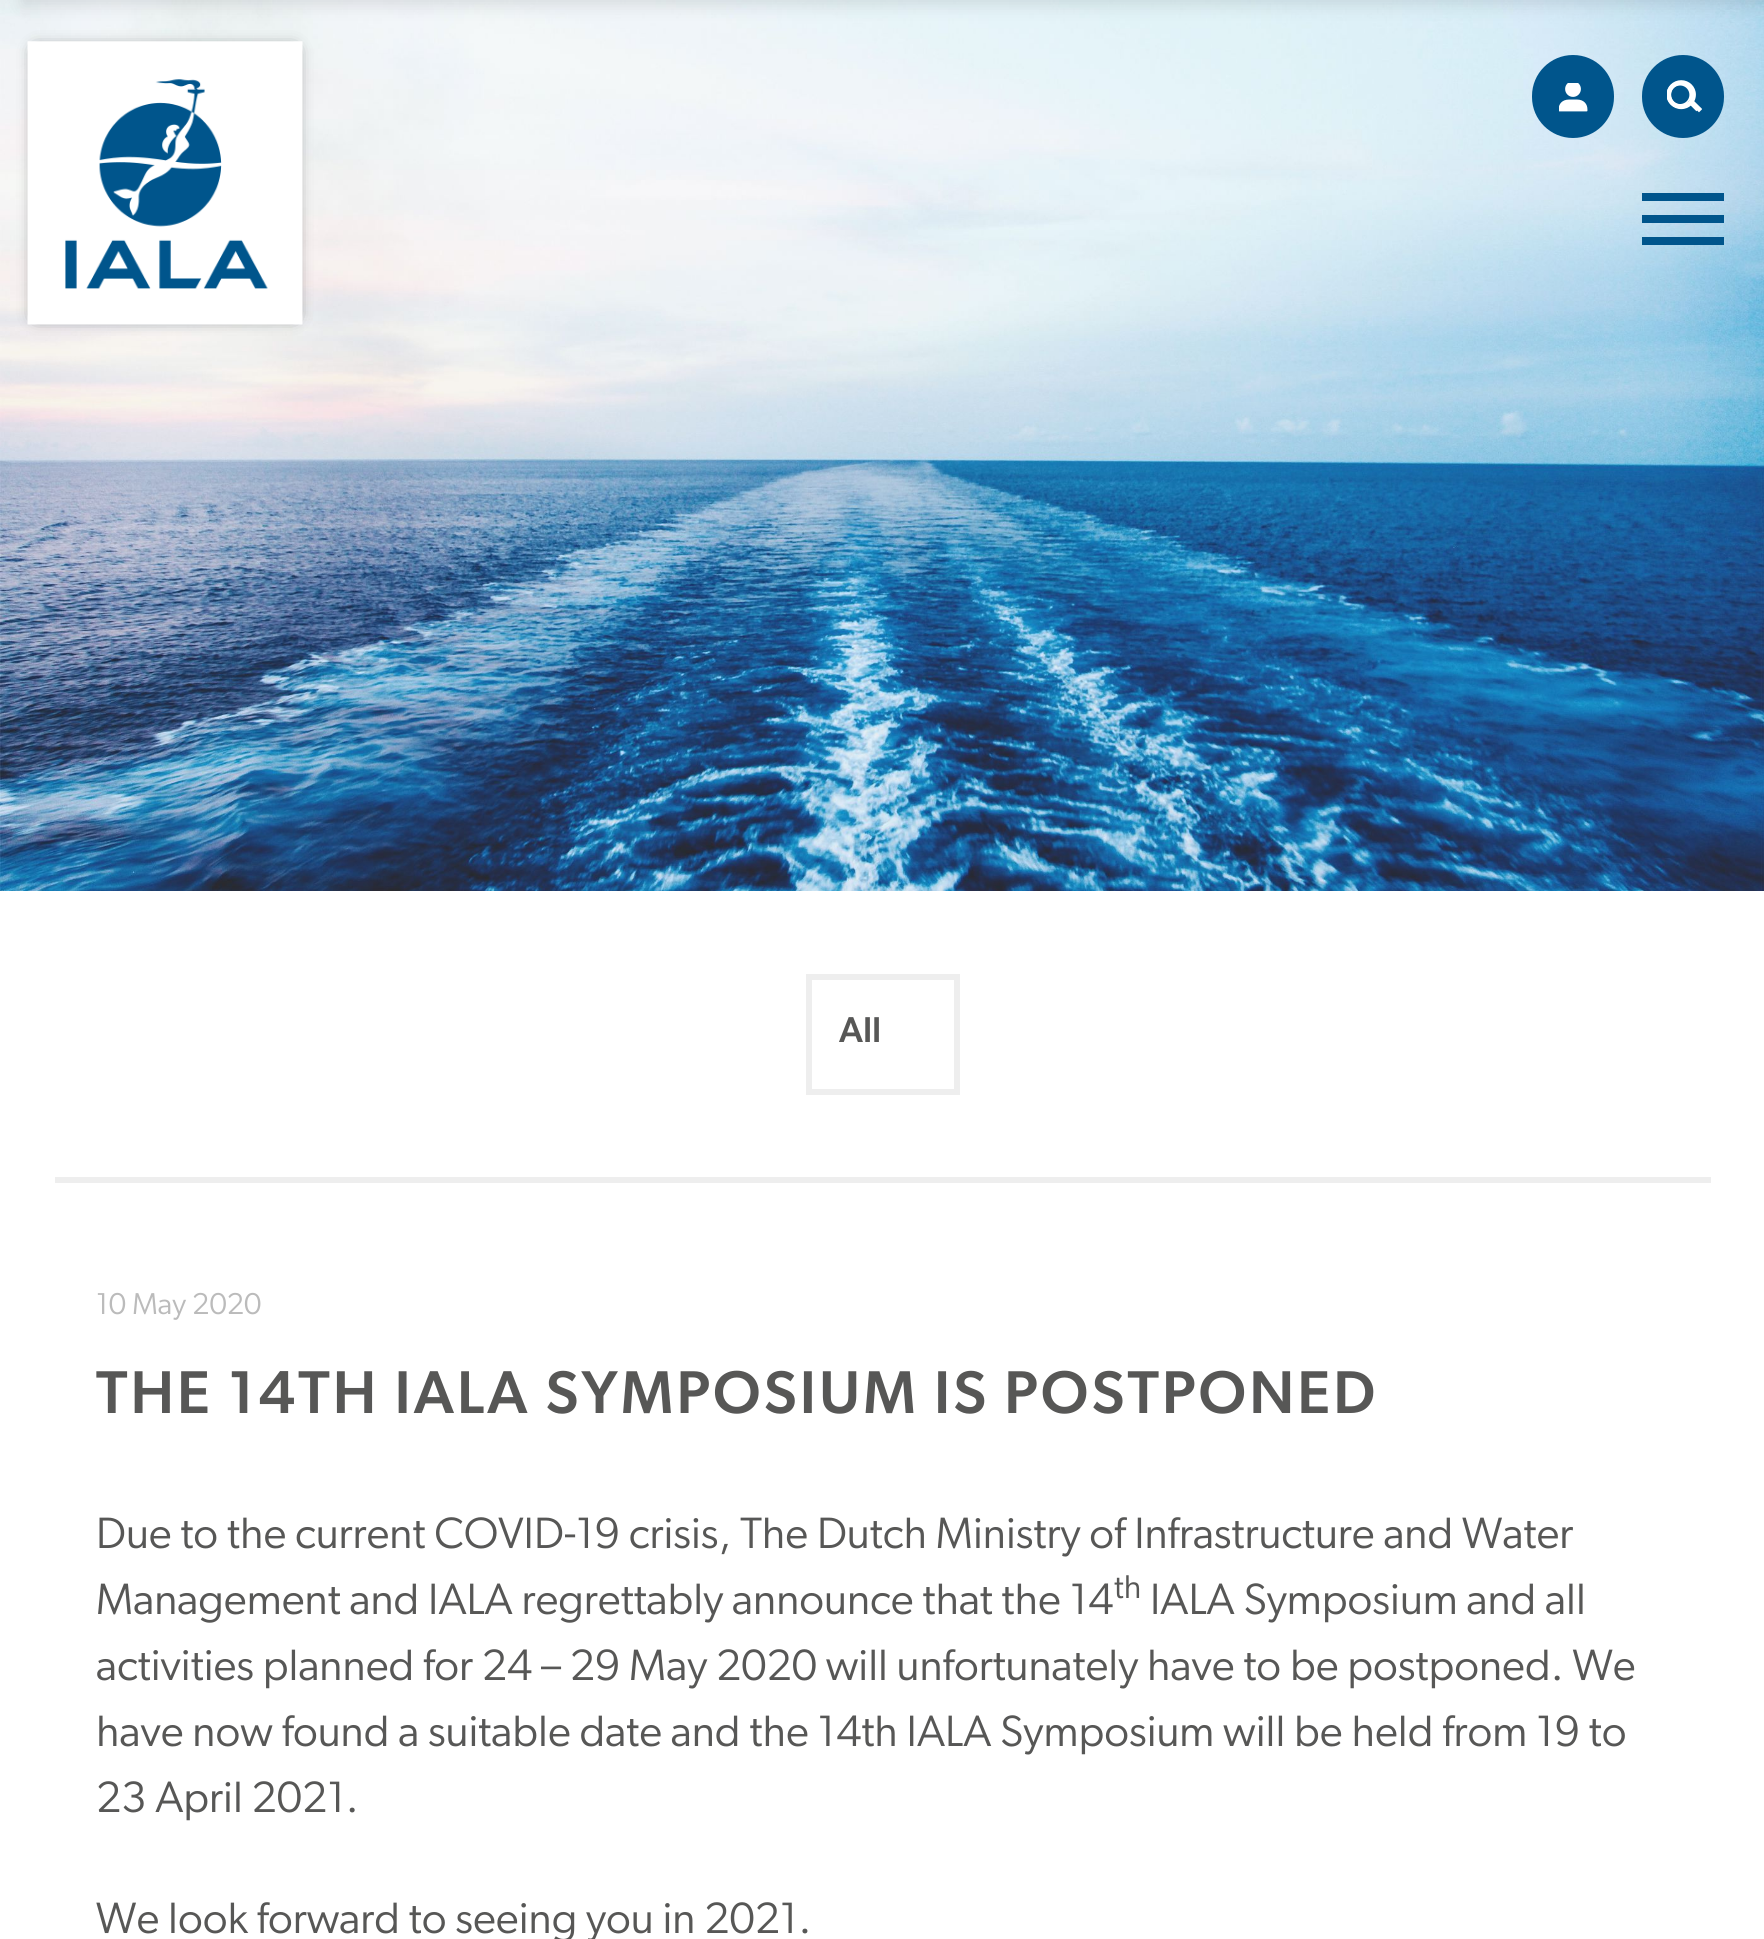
import math
import cairo

surface = cairo.ImageSurface(cairo.FORMAT_RGB24, 1764, 1939)
ctx = cairo.Context(surface)
options = cairo.FontOptions()
options.set_hint_metrics(cairo.HINT_METRICS_OFF)
options.set_hint_style(cairo.HINT_STYLE_NONE)
ctx.set_font_options(options)
ctx.set_miter_limit(4)


def set_color(code):
    ctx.set_source_rgb(*(v / 255 for v in bytes.fromhex(code[-6:])))


def draw_text(x, y, s, family, size, color, bold=False, italic=False):
    ctx.select_font_face(family, cairo.FONT_SLANT_ITALIC if italic else cairo.FONT_SLANT_NORMAL, cairo.FONT_WEIGHT_BOLD if bold else cairo.FONT_WEIGHT_NORMAL)
    ctx.set_font_size(size)
    set_color(color)
    ctx.move_to(x, y)
    ctx.show_text(s)


def draw_spaced(x, y, s, letter, word):
    ctx.move_to(x, y)
    for ch in s:
        ctx.show_text(ch)
        ctx.rel_move_to(letter + word * (ch == ' '), 0)


def fill_rect(x, y, w, h, color):
    set_color(color)
    ctx.rectangle(x, y, w, h)
    ctx.fill()


def rounded_rect(x, y, w, h, r):
    ctx.new_sub_path()
    for i, (u, v) in enumerate([(x + w - r, y + h - r), (x + r, y + h - r), (x + r, y + r), (x + w - r, y + r)]):
        ctx.arc(u, v, r, i * math.pi / 2, (i + 1) * math.pi / 2)
    ctx.close_path()


def draw_shadow(x, y, w, h, r, blur, alpha):
    ctx.push_group_with_content(cairo.CONTENT_ALPHA)
    ctx.set_operator(cairo.OPERATOR_SOURCE)
    for i in range(15, -16, -2):
        e = blur * i / 6
        if min(w, h) + 2 * e > 0:
            ctx.set_source_rgba(0, 0, 0, alpha * math.erfc((i - 1) / 8.5) / 2)
            rounded_rect(x - e, y - e, w + 2 * e, h + 2 * e, max(0, min(r + e + blur * .6, min(w, h) / 2 + e)))
            ctx.fill()
    ctx.mask(ctx.pop_group())


def draw_image(path, x, y, w, h):
    ctx.save()
    ctx.set_source_surface(cairo.ImageSurface.create_from_png(path), x, y)
    ctx.rectangle(x, y, w, h)
    ctx.fill()
    ctx.restore()


set_color("#ffffff")
ctx.paint()
draw_image("assets/img1.png", 0, 0, 1764, 891)
set_color("#000000")
draw_shadow(36, 50, 258, 266, 0, 8, 0.8)
draw_image("assets/img2.png", 27, 41, 276, 284)
set_color("#00558c")
rounded_rect(1532, 55, 82, 83, 41)
ctx.fill()
draw_image("assets/img3.png", 1559, 83, 29, 29)
rounded_rect(1642, 55, 82, 83, 41)
ctx.fill()
draw_image("assets/img4.png", 1667, 80, 35, 33)
draw_image("assets/img5.png", 1667, 83, 31, 29)
fill_rect(1642, 193, 82, 8, "#00558c")
fill_rect(1642, 215, 82, 8, "#00558c")
fill_rect(1642, 237, 82, 8, "#00558c")
set_color("#000000")
draw_shadow(22, -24, 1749, 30, 0, 8, 0.1)
fill_rect(55, 1177, 1656, 6, "#eeeeee")
ctx.rectangle(809, 977, 148, 115)
ctx.set_line_width(6)
ctx.stroke()
draw_text(839, 1042, "All", "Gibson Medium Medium", 36, "#575756")
draw_text(96, 1314, "10 May 2020", "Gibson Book", 30.25, "#bbbbbb")
ctx.select_font_face("Gibson Medium Medium")
ctx.set_font_size(60.5)
set_color("#575756")
draw_spaced(96, 1413, "THE 14TH IALA SYMPOSIUM IS POSTPONED", 3.05, 0)
draw_text(96, 1548, "Due to the current COVID-19 crisis, The Dutch Ministry of Infrastructure and Water", "Gibson Book", 44, "#575756")
draw_text(96, 1614, "Management and IALA regrettably announce that the 14", "Gibson Book", 44, "#575756")
draw_text(1114, 1598, "th", "Gibson Book", 33, "#575756")
draw_text(1150, 1614, "IALA Symposium and all", "Gibson Book", 44, "#575756")
draw_text(96, 1680, "activities planned for 24 – 29 May 2020 will unfortunately have to be postponed. We", "Gibson Book", 44, "#575756")
draw_text(96, 1746, "have now found a suitable date and the 14th IALA Symposium will be held from 19 to", "Gibson Book", 44, "#575756")
draw_text(96, 1812, "23 April 2021.", "Gibson Book", 44, "#575756")
draw_text(96, 1933, "We look forward to seeing you in 2021.", "Gibson Book", 44, "#575756")
surface.write_to_png("output.png")
